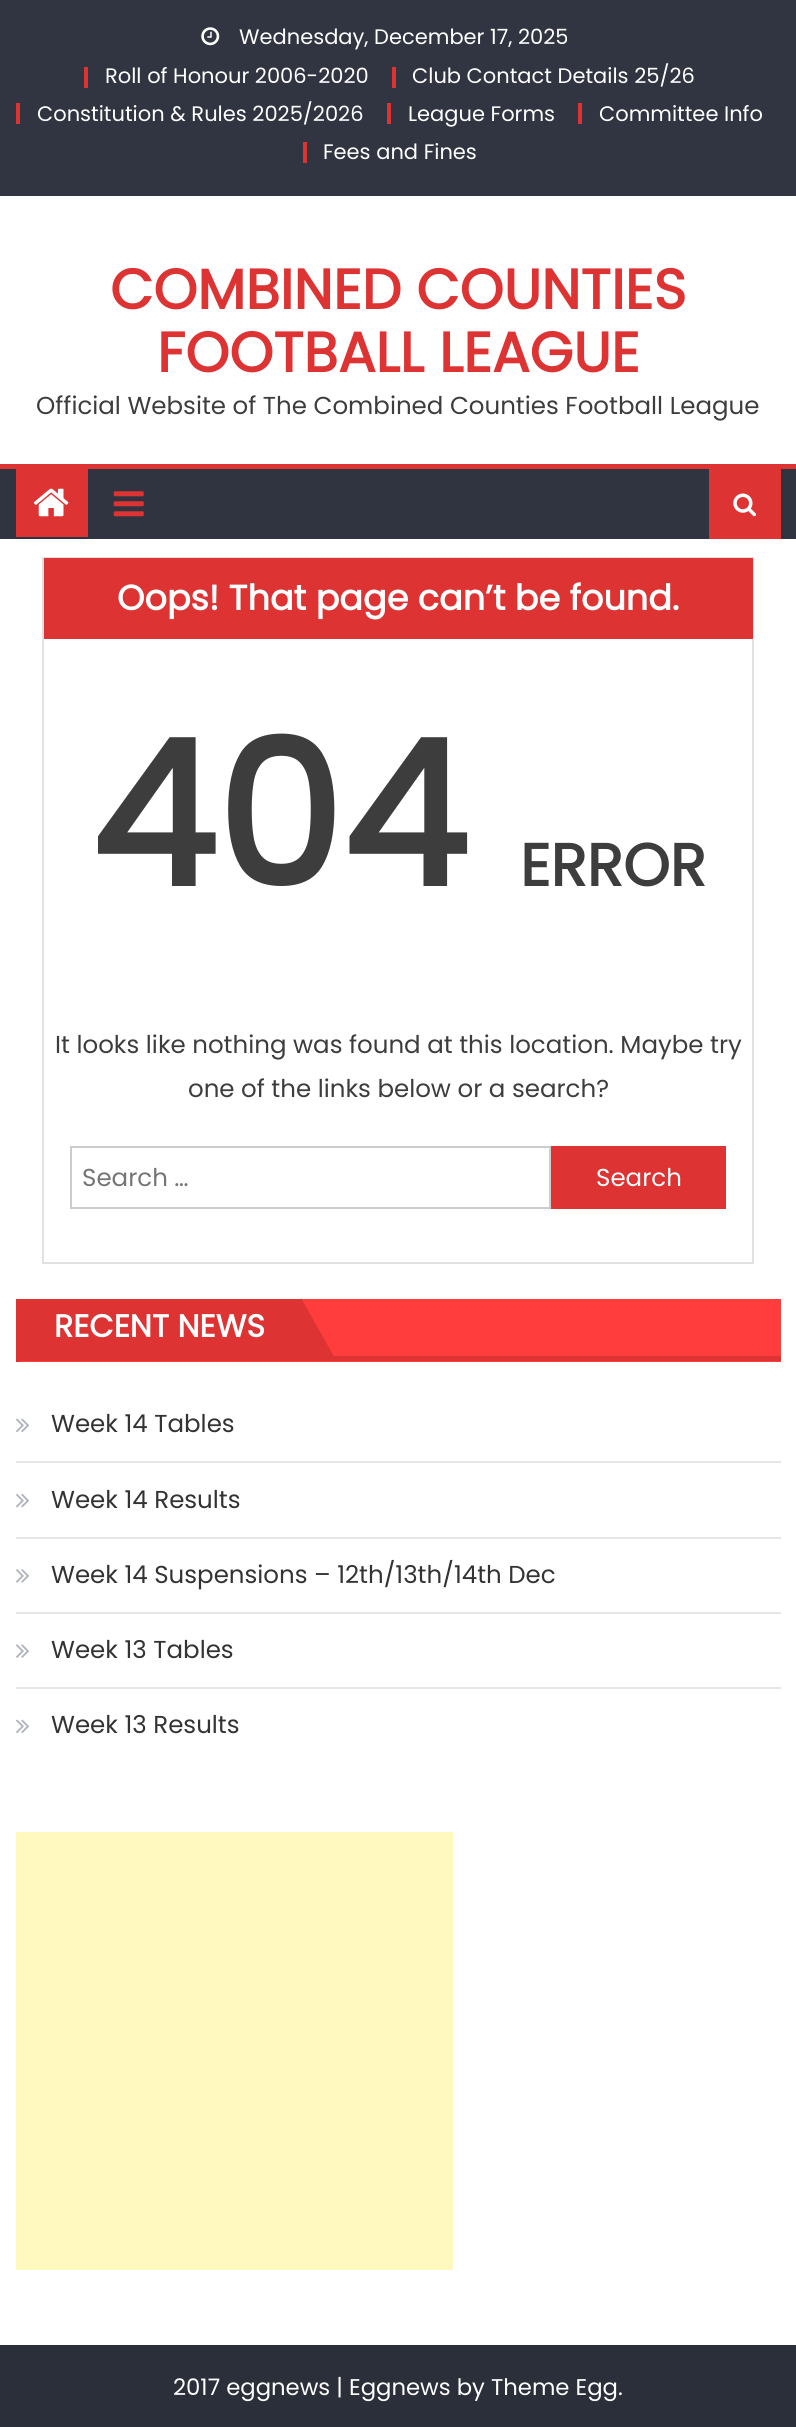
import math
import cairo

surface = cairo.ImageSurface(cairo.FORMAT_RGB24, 796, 2427)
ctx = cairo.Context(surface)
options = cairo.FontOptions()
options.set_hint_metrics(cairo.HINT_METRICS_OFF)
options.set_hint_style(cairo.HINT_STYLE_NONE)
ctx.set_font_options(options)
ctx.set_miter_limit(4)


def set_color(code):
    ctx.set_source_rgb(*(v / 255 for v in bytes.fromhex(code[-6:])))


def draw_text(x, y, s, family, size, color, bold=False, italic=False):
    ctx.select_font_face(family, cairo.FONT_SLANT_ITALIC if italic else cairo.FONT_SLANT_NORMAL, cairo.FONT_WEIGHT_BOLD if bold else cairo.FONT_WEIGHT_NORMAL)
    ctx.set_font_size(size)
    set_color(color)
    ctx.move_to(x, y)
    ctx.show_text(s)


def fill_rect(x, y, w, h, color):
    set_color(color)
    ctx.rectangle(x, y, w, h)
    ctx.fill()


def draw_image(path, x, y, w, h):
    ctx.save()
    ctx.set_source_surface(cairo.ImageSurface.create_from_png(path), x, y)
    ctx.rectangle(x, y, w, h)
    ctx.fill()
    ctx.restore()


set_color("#ffffff")
ctx.paint()
fill_rect(0, 0, 796, 196, "#313541")
draw_image("assets/img1.png", 201, 27, 19, 19)
draw_text(239, 44, "Wednesday, December 17, 2025", "Poppins", 21, "#ffffff")
fill_rect(84, 67, 4, 21, "#dd3333")
draw_text(105, 83, "Roll of Honour 2006-2020", "Poppins", 21, "#ffffff")
fill_rect(392, 67, 4, 21, "#dd3333")
draw_text(412, 83, "Club Contact Details 25/26", "Poppins", 21, "#ffffff")
fill_rect(16, 103, 4, 21, "#dd3333")
draw_text(37, 121, "Constitution & Rules 2025/2026", "Poppins", 21, "#ffffff")
fill_rect(387, 103, 4, 21, "#dd3333")
draw_text(408, 121, "League Forms", "Poppins", 21, "#ffffff")
fill_rect(578, 103, 4, 21, "#dd3333")
draw_text(599, 121, "Committee Info", "Poppins", 21, "#ffffff")
fill_rect(303, 142, 4, 21, "#dd3333")
draw_text(323, 159, "Fees and Fines", "Poppins", 21, "#ffffff")
draw_text(110, 309, "COMBINED COUNTIES", "Poppins", 56, "#dd3333", bold=True)
draw_text(157, 372, "FOOTBALL LEAGUE", "Poppins", 56, "#dd3333", bold=True)
draw_text(36, 414, "Official Website of The Combined Counties Football League", "Poppins", 24.5, "#3d3d3d")
fill_rect(0, 469, 796, 70, "#303440")
fill_rect(0, 464, 796, 5, "#dd3333")
fill_rect(16, 469, 72, 68, "#dd3333")
draw_image("assets/img2.png", 33, 488, 36, 29)
draw_image("assets/img3.png", 113, 491, 31, 26)
fill_rect(709, 469, 72, 70, "#dd3333")
draw_image("assets/img4.png", 733, 493, 23, 24)
ctx.rectangle(43, 558, 710, 705)
set_color("#e1e1e1")
ctx.stroke()
fill_rect(44, 558, 709, 81, "#dd3333")
draw_text(117, 610, "Oops! That page can’t be found.", "Poppins", 35, "#ffffff", bold=True)
draw_text(90, 886, "404", "Poppins", 200, "#3d3d3d", bold=True)
draw_text(520, 886, "ERROR", "Poppins", 59.5, "#3d3d3d", bold=True)
draw_text(55, 1053, "It looks like nothing was found at this location. Maybe try", "Poppins", 24.5, "#3d3d3d")
draw_text(188, 1097, "one of the links below or a search?", "Poppins", 24.5, "#3d3d3d")
ctx.rectangle(71, 1147, 479, 61)
set_color("#cccccc")
ctx.stroke()
draw_text(82, 1186, "Search …", "Poppins", 24.5, "#757575")
fill_rect(551, 1146, 175, 63, "#dd3333")
draw_text(596, 1186, "Search", "Poppins", 24.5, "#ffffff")
fill_rect(20, 1299, 761, 63, "#ff3d3d")
fill_rect(16, 1356, 765, 5, "#dd3333")
fill_rect(16, 1299, 4, 63, "#dd3333")
fill_rect(20, 1299, 281, 57, "#dd3333")
draw_text(54, 1337, "RECENT NEWS", "Poppins", 31.5, "#ffffff", bold=True)
set_color("#dd3333")
ctx.new_path()
ctx.move_to(336, 1360)
ctx.line_to(301, 1360)
ctx.line_to(301, 1298)
ctx.close_path()
ctx.fill()
fill_rect(16, 1461, 765, 2, "#e6e6e6")
draw_image("assets/img5.png", 16, 1418, 13, 15)
draw_text(51, 1432, "Week 14 Tables", "Poppins", 24.5, "#333333")
fill_rect(16, 1537, 765, 2, "#e6e6e6")
draw_image("assets/img6.png", 16, 1493, 13, 15)
draw_text(51, 1508, "Week 14 Results", "Poppins", 24.5, "#333333")
fill_rect(16, 1612, 765, 2, "#e6e6e6")
draw_image("assets/img7.png", 16, 1569, 13, 14)
draw_text(51, 1583, "Week 14 Suspensions – 12th/13th/14th Dec", "Poppins", 24.5, "#333333")
fill_rect(16, 1687, 765, 2, "#e6e6e6")
draw_image("assets/img8.png", 16, 1644, 13, 14)
draw_text(51, 1658, "Week 13 Tables", "Poppins", 24.5, "#333333")
draw_image("assets/img5.png", 16, 1719, 13, 15)
draw_text(51, 1733, "Week 13 Results", "Poppins", 24.5, "#333333")
fill_rect(16, 1832, 437, 438, "#fff9c0")
fill_rect(0, 2345, 796, 82, "#2b2f3a")
draw_text(173, 2395, "2017 eggnews | Eggnews by Theme Egg.", "Poppins", 22.75, "#ffffff")
surface.write_to_png("output.png")
